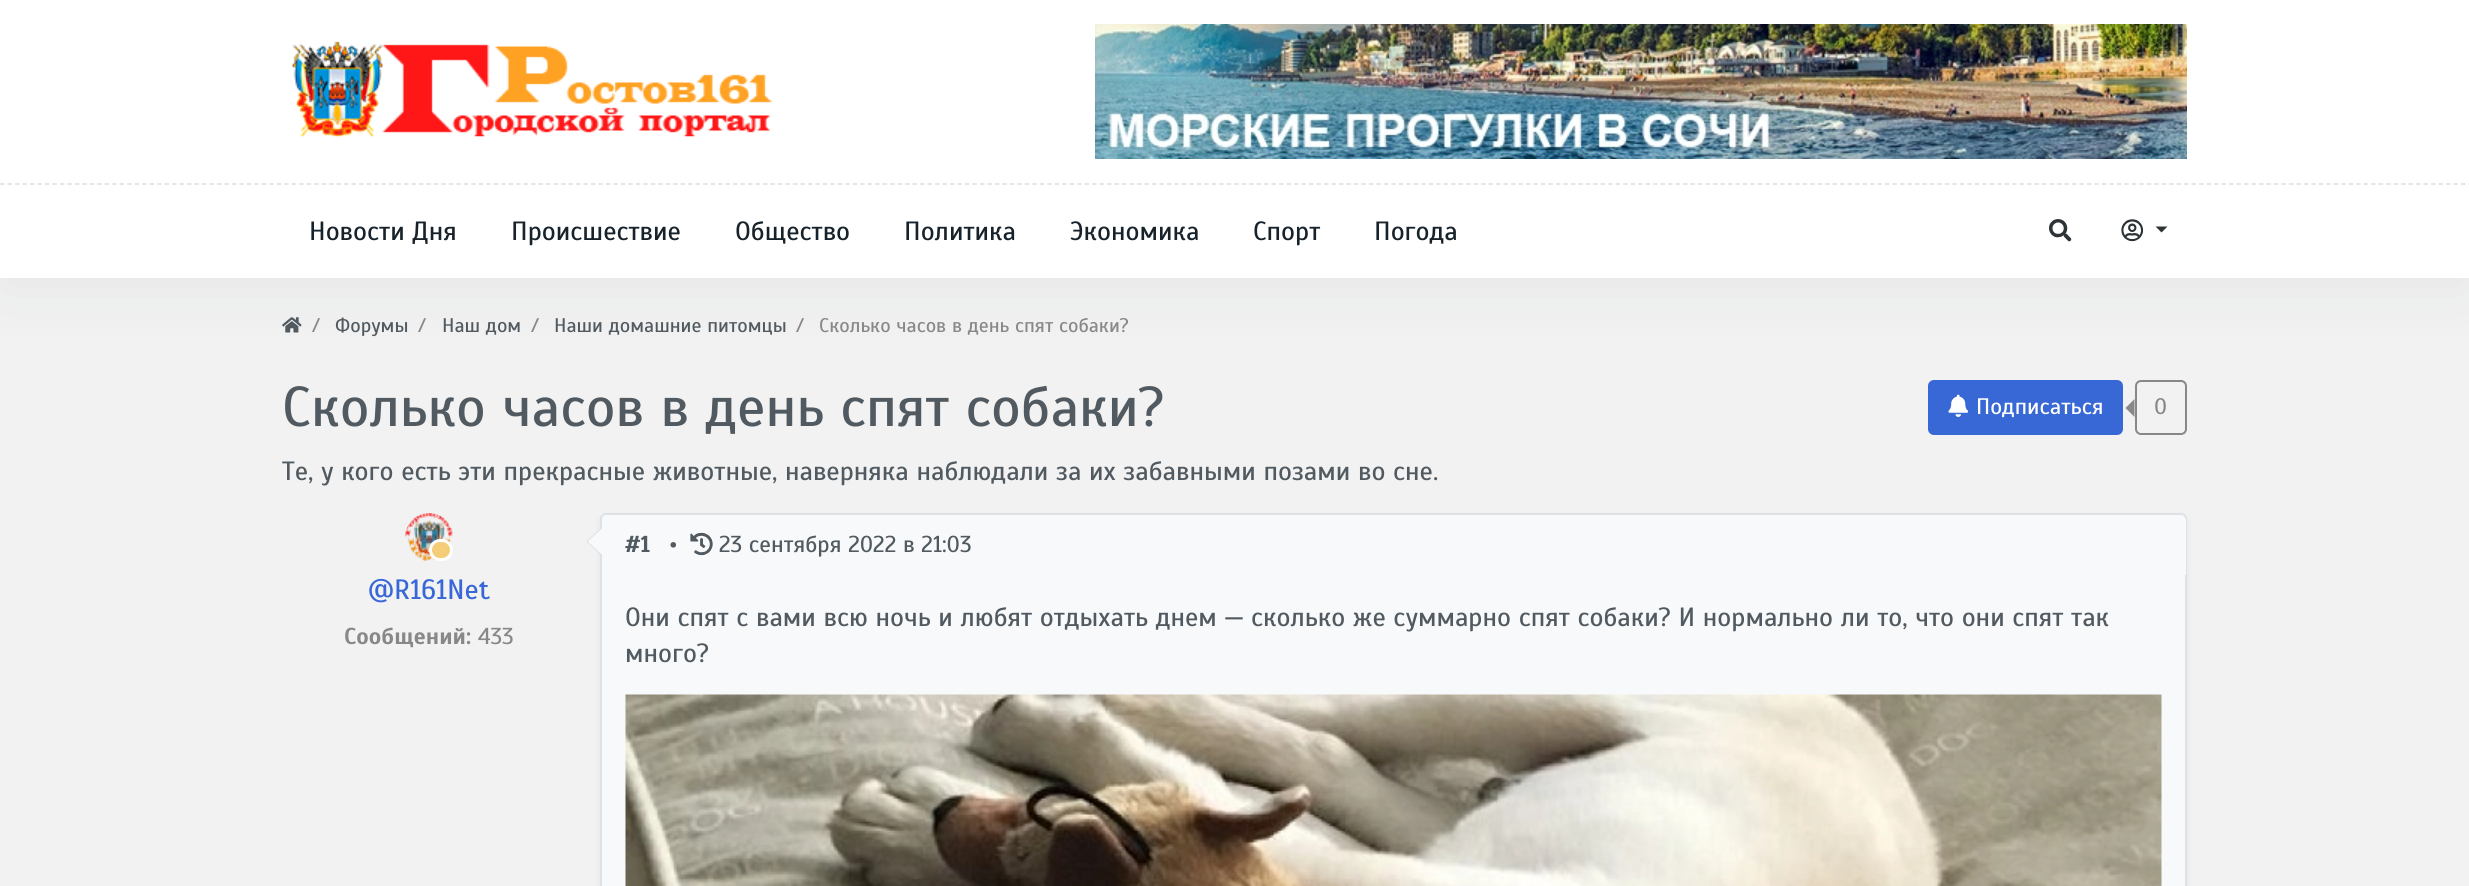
import math
import cairo

surface = cairo.ImageSurface(cairo.FORMAT_RGB24, 2469, 886)
ctx = cairo.Context(surface)
options = cairo.FontOptions()
options.set_hint_metrics(cairo.HINT_METRICS_OFF)
options.set_hint_style(cairo.HINT_STYLE_NONE)
ctx.set_font_options(options)
ctx.set_miter_limit(4)


def set_color(code):
    ctx.set_source_rgb(*(v / 255 for v in bytes.fromhex(code[-6:])))


def draw_text(x, y, s, family, size, color, bold=False, italic=False):
    ctx.select_font_face(family, cairo.FONT_SLANT_ITALIC if italic else cairo.FONT_SLANT_NORMAL, cairo.FONT_WEIGHT_BOLD if bold else cairo.FONT_WEIGHT_NORMAL)
    ctx.set_font_size(size)
    set_color(color)
    ctx.move_to(x, y)
    ctx.show_text(s)


def fill_rect(x, y, w, h, color):
    set_color(color)
    ctx.rectangle(x, y, w, h)
    ctx.fill()


def rounded_rect(x, y, w, h, r):
    ctx.new_sub_path()
    for i, (u, v) in enumerate([(x + w - r, y + h - r), (x + r, y + h - r), (x + r, y + r), (x + w - r, y + r)]):
        ctx.arc(u, v, r, i * math.pi / 2, (i + 1) * math.pi / 2)
    ctx.close_path()


def draw_shadow(x, y, w, h, r, blur, alpha):
    ctx.push_group_with_content(cairo.CONTENT_ALPHA)
    ctx.set_operator(cairo.OPERATOR_SOURCE)
    for i in range(15, -16, -2):
        e = blur * i / 6
        if min(w, h) + 2 * e > 0:
            ctx.set_source_rgba(0, 0, 0, alpha * math.erfc((i - 1) / 8.5) / 2)
            rounded_rect(x - e, y - e, w + 2 * e, h + 2 * e, max(0, min(r + e + blur * .6, min(w, h) / 2 + e)))
            ctx.fill()
    ctx.mask(ctx.pop_group())


def draw_image(path, x, y, w, h):
    ctx.save()
    ctx.set_source_surface(cairo.ImageSurface.create_from_png(path), x, y)
    ctx.rectangle(x, y, w, h)
    ctx.fill()
    ctx.restore()


set_color("#f2f2f2")
ctx.paint()
set_color("#17222b")
draw_shadow(0, 15, 2469, 278, 0, 30, 0.05)
fill_rect(0, 0, 2469, 278, "#ffffff")
draw_image("assets/img1.png", 292, 41, 481, 96)
draw_image("assets/img2.png", 1095, 24, 1092, 135)
ctx.new_path()
ctx.move_to(0, 184)
ctx.line_to(2469, 184)
set_color("#dcdedf")
ctx.set_line_width(1.5)
ctx.set_dash([4.5, 2.98])
ctx.stroke()
draw_text(309, 240, "Новости Дня", "Scada", 26.4, "#17222b")
draw_text(511, 240, "Происшествие", "Scada", 26.4, "#17222b")
draw_text(735, 240, "Общество", "Scada", 26.4, "#17222b")
draw_text(904, 240, "Политика", "Scada", 26.4, "#17222b")
draw_text(1070, 240, "Экономика", "Scada", 26.4, "#17222b")
draw_text(1253, 240, "Спорт", "Scada", 26.4, "#17222b")
draw_text(1374, 240, "Погода", "Scada", 26.4, "#17222b")
draw_image("assets/img3.png", 2049, 219, 23, 23)
draw_image("assets/img4.png", 2121, 219, 23, 23)
set_color("#2d3436")
ctx.new_path()
ctx.move_to(2155.5, 226.5)
ctx.line_to(2167.5, 226.5)
ctx.line_to(2161.5, 232.5)
ctx.close_path()
ctx.fill()
draw_image("assets/img5.png", 282, 317, 20, 16)
draw_text(312, 332, "/", "Scada", 19.75, "#888888")
draw_text(335, 332, "Форумы", "Scada", 19.75, "#515a60")
draw_text(418, 332, "/", "Scada", 19.75, "#888888")
draw_text(442, 332, "Наш дом", "Scada", 19.75, "#515a60")
draw_text(531, 332, "/", "Scada", 19.75, "#888888")
draw_text(554, 332, "Наши домашние питомцы", "Scada", 19.75, "#515a60")
draw_text(796, 332, "/", "Scada", 19.75, "#888888")
draw_text(819, 332, "Сколько часов в день спят собаки?", "Scada", 19.75, "#888888")
draw_text(282, 426, "Сколько часов в день спят собаки?", "Scada", 56.25, "#515a60")
set_color("#3867d6")
rounded_rect(1929, 381, 193, 53, 5)
ctx.fill_preserve()
ctx.set_line_width(2)
ctx.set_dash([])
ctx.stroke()
draw_image("assets/img6.png", 1948, 394, 20, 23)
draw_text(1976, 414, "Подписаться", "Scada", 22.5, "#ffffff")
rounded_rect(2136, 381, 50, 53, 5)
set_color("#888888")
ctx.stroke()
ctx.new_path()
ctx.move_to(2134.5, 399)
ctx.line_to(2134.5, 417)
ctx.line_to(2125.5, 408)
ctx.close_path()
ctx.fill()
draw_text(2154, 414, "0", "Scada", 22.5, "#888888")
draw_text(282, 480, "Те, у кого есть эти прекрасные животные, наверняка наблюдали за их забавными позами во сне.", "Scada", 26.4, "#515a60")
draw_image("assets/img7.png", 405, 513, 48, 48)
set_color("#f5cd79")
rounded_rect(430.5, 540.5, 21, 19, 9.5)
ctx.fill_preserve()
set_color("#ffffff")
ctx.set_line_width(3)
ctx.stroke()
draw_text(368, 599, "@R161Net", "Scada", 28, "#3867d6")
draw_text(344, 644, "Сообщений:", "Scada", 23.1, "#888888", bold=True)
draw_text(478, 644, "433", "Scada", 23.1, "#888888")
set_color("#1a1a1a")
draw_shadow(600, 516, 1587, 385, 6, 3, 0.07)
set_color("#f8f9fa")
rounded_rect(601, 514, 1585, 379, 5)
ctx.fill_preserve()
set_color("#dee2e6")
ctx.set_line_width(2)
ctx.stroke()
ctx.new_path()
ctx.move_to(587, 540.5)
ctx.line_to(601, 528)
ctx.line_to(601, 555)
ctx.line_to(587, 542.5)
ctx.close_path()
ctx.fill()
set_color("#f8f9fa")
ctx.new_path()
ctx.move_to(608, 515)
ctx.line_to(2180, 515)
ctx.curve_to(2183.5, 515, 2186, 517.5, 2186, 521)
ctx.line_to(2186, 575)
ctx.line_to(602, 575)
ctx.line_to(602, 521)
ctx.curve_to(602, 517.5, 604.5, 515, 608, 515)
ctx.close_path()
ctx.fill()
ctx.new_path()
ctx.move_to(588, 541)
ctx.line_to(602.5, 528)
ctx.line_to(602.5, 555)
ctx.line_to(588, 542)
ctx.close_path()
ctx.fill()
draw_text(625, 552, "#1", "Scada", 23.1, "#515a60", bold=True)
draw_text(669, 552, "•", "Scada", 23.1, "#515a60")
draw_image("assets/img8.png", 690, 532, 23, 24)
draw_text(719, 552, "23 сентября 2022 в 21:03", "Scada", 23.1, "#515a60")
draw_text(625, 626, "Они спят с вами всю ночь и любят отдыхать днем — сколько же суммарно спят собаки? И нормально ли то, что они спят так", "Scada", 26.4, "#515a60")
draw_text(625, 662, "много?", "Scada", 26.4, "#515a60")
draw_image("assets/img9.png", 625, 694, 1537, 192)
surface.write_to_png("output.png")
